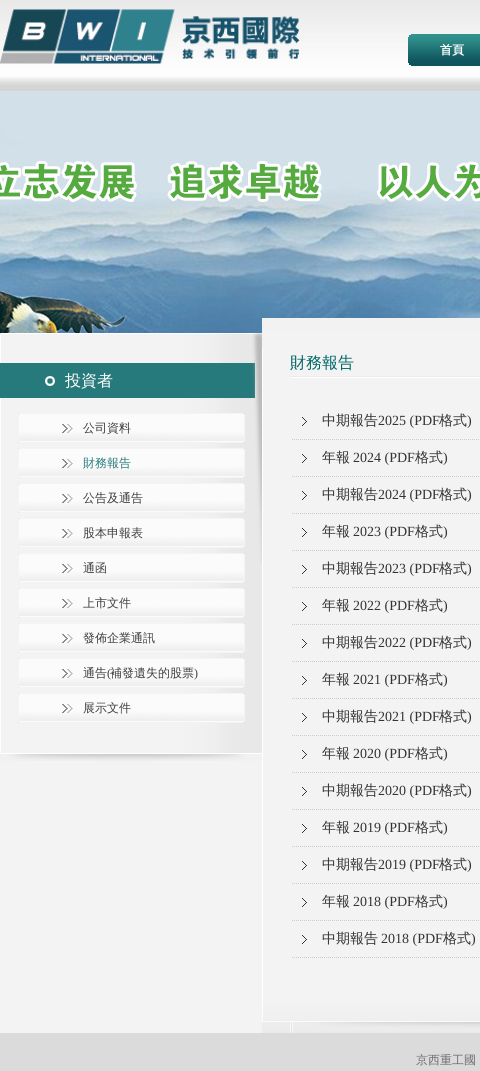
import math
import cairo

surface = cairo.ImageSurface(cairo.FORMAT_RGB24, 480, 1071)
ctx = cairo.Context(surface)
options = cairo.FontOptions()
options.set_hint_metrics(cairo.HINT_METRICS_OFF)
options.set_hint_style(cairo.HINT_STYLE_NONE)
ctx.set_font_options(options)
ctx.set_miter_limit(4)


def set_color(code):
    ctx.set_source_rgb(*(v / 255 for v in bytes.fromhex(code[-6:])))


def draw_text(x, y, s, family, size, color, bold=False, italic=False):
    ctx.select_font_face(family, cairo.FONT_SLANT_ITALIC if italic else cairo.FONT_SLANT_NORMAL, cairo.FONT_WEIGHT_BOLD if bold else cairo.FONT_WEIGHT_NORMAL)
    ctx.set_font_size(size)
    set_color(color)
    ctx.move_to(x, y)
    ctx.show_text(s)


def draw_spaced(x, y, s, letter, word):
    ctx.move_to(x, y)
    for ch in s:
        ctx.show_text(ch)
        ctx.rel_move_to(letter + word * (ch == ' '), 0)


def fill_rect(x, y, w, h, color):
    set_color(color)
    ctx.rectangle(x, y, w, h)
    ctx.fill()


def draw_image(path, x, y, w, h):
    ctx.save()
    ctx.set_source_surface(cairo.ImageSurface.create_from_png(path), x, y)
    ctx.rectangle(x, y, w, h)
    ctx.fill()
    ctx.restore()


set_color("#f3f3f3")
ctx.paint()
draw_image("assets/img1.png", 0, 0, 480, 91)
draw_image("assets/img2.png", 0, 9, 300, 55)
draw_image("assets/img3.png", 408, 34, 10, 32)
draw_image("assets/img4.png", 418, 34, 62, 32)
draw_text(440, 54, "首頁", "WenQuanYi Zen Hei", 12, "#ffffff", bold=True)
draw_image("assets/img5.png", 0, 91, 480, 242)
draw_image("assets/img6.png", 0, 333, 262, 15)
draw_image("assets/img7.png", 0, 348, 262, 400)
fill_rect(0, 363, 255, 35, "#277a7b")
draw_image("assets/img8.png", 45, 376, 10, 10)
draw_text(65, 386, "投資者", "WenQuanYi Zen Hei Medium", 16, "#ffffff")
draw_image("assets/img9.png", 18, 413, 227, 30)
draw_text(83, 432, "公司資料", "WenQuanYi Zen Hei Medium", 12, "#3e3e3e")
draw_image("assets/img9.png", 18, 448, 227, 30)
draw_text(83, 467, "財務報告", "WenQuanYi Zen Hei Medium", 12, "#277a7b")
draw_image("assets/img9.png", 18, 483, 227, 30)
draw_text(83, 502, "公告及通告", "WenQuanYi Zen Hei Medium", 12, "#3e3e3e")
draw_image("assets/img9.png", 18, 518, 227, 30)
draw_text(83, 537, "股本申報表", "WenQuanYi Zen Hei Medium", 12, "#3e3e3e")
draw_image("assets/img9.png", 18, 553, 227, 30)
draw_text(83, 572, "通函", "WenQuanYi Zen Hei Medium", 12, "#3e3e3e")
draw_image("assets/img9.png", 18, 588, 227, 30)
draw_text(83, 607, "上市文件", "WenQuanYi Zen Hei Medium", 12, "#3e3e3e")
draw_image("assets/img9.png", 18, 623, 227, 30)
draw_text(83, 642, "發佈企業通訊", "WenQuanYi Zen Hei Medium", 12, "#3e3e3e")
draw_image("assets/img9.png", 18, 658, 227, 30)
draw_text(83, 677, "通告", "WenQuanYi Zen Hei Medium", 12, "#3e3e3e")
draw_text(107, 677, "(", "Liberation Serif", 12, "#3e3e3e")
draw_text(110, 677, "補發遺失的股票", "WenQuanYi Zen Hei Medium", 12, "#3e3e3e")
draw_text(194, 677, ")", "Liberation Serif", 12, "#3e3e3e")
draw_image("assets/img9.png", 18, 693, 227, 30)
draw_text(83, 712, "展示文件", "WenQuanYi Zen Hei Medium", 12, "#3e3e3e")
draw_image("assets/img10.png", 0, 748, 262, 13)
fill_rect(262, 318, 218, 15, "#f2f2f2")
draw_image("assets/img11.png", 252, 333, 10, 230)
fill_rect(262, 348, 1, 655, "#ffffff")
draw_image("assets/img12.png", 290, 376, 190, 2)
draw_text(290, 368, "財務報告", "WenQuanYi Zen Hei Medium", 16, "#006666")
draw_image("assets/img13.png", 302, 417, 5, 9)
ctx.new_path()
ctx.move_to(292, 439.5)
ctx.line_to(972, 439.5)
set_color("#cccccc")
ctx.set_line_width(1)
ctx.set_dash([1, 1])
ctx.stroke()
draw_text(322, 425, "中期報告", "WenQuanYi Zen Hei Medium", 14, "#333333")
draw_text(378, 425, "2025 (PDF", "Liberation Serif", 14, "#333333")
draw_text(439, 425, "格式", "WenQuanYi Zen Hei Medium", 14, "#333333")
draw_text(467, 425, ")", "Liberation Serif", 14, "#333333")
draw_image("assets/img13.png", 302, 454, 5, 9)
ctx.new_path()
ctx.move_to(292, 476.5)
ctx.line_to(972, 476.5)
set_color("#cccccc")
ctx.stroke()
draw_text(322, 462, "年報", "WenQuanYi Zen Hei Medium", 14, "#333333")
draw_text(353, 462, "2024 (PDF", "Liberation Serif", 14, "#333333")
draw_text(415, 462, "格式", "WenQuanYi Zen Hei Medium", 14, "#333333")
draw_text(443, 462, ")", "Liberation Serif", 14, "#333333")
draw_image("assets/img13.png", 302, 491, 5, 9)
ctx.new_path()
ctx.move_to(292, 513.5)
ctx.line_to(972, 513.5)
set_color("#cccccc")
ctx.stroke()
draw_text(322, 499, "中期報告", "WenQuanYi Zen Hei Medium", 14, "#333333")
draw_text(378, 499, "2024 (PDF", "Liberation Serif", 14, "#333333")
draw_text(439, 499, "格式", "WenQuanYi Zen Hei Medium", 14, "#333333")
draw_text(467, 499, ")", "Liberation Serif", 14, "#333333")
draw_image("assets/img13.png", 302, 528, 5, 9)
ctx.new_path()
ctx.move_to(292, 550.5)
ctx.line_to(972, 550.5)
set_color("#cccccc")
ctx.stroke()
draw_text(322, 536, "年報", "WenQuanYi Zen Hei Medium", 14, "#333333")
draw_text(353, 536, "2023 (PDF", "Liberation Serif", 14, "#333333")
draw_text(415, 536, "格式", "WenQuanYi Zen Hei Medium", 14, "#333333")
draw_text(443, 536, ")", "Liberation Serif", 14, "#333333")
draw_image("assets/img13.png", 302, 565, 5, 9)
ctx.new_path()
ctx.move_to(292, 587.5)
ctx.line_to(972, 587.5)
set_color("#cccccc")
ctx.stroke()
draw_text(322, 573, "中期報告", "WenQuanYi Zen Hei Medium", 14, "#333333")
draw_text(378, 573, "2023 (PDF", "Liberation Serif", 14, "#333333")
draw_text(439, 573, "格式", "WenQuanYi Zen Hei Medium", 14, "#333333")
draw_text(467, 573, ")", "Liberation Serif", 14, "#333333")
draw_image("assets/img13.png", 302, 602, 5, 9)
ctx.new_path()
ctx.move_to(292, 624.5)
ctx.line_to(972, 624.5)
set_color("#cccccc")
ctx.stroke()
draw_text(322, 610, "年報", "WenQuanYi Zen Hei Medium", 14, "#333333")
draw_text(353, 610, "2022 (PDF", "Liberation Serif", 14, "#333333")
draw_text(415, 610, "格式", "WenQuanYi Zen Hei Medium", 14, "#333333")
draw_text(443, 610, ")", "Liberation Serif", 14, "#333333")
draw_image("assets/img13.png", 302, 639, 5, 9)
ctx.new_path()
ctx.move_to(292, 661.5)
ctx.line_to(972, 661.5)
set_color("#cccccc")
ctx.stroke()
draw_text(322, 647, "中期報告", "WenQuanYi Zen Hei Medium", 14, "#333333")
draw_text(378, 647, "2022 (PDF", "Liberation Serif", 14, "#333333")
draw_text(439, 647, "格式", "WenQuanYi Zen Hei Medium", 14, "#333333")
draw_text(467, 647, ")", "Liberation Serif", 14, "#333333")
draw_image("assets/img13.png", 302, 676, 5, 9)
ctx.new_path()
ctx.move_to(292, 698.5)
ctx.line_to(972, 698.5)
set_color("#cccccc")
ctx.stroke()
draw_text(322, 684, "年報", "WenQuanYi Zen Hei Medium", 14, "#333333")
draw_text(353, 684, "2021 (PDF", "Liberation Serif", 14, "#333333")
draw_text(415, 684, "格式", "WenQuanYi Zen Hei Medium", 14, "#333333")
draw_text(443, 684, ")", "Liberation Serif", 14, "#333333")
draw_image("assets/img13.png", 302, 713, 5, 9)
ctx.new_path()
ctx.move_to(292, 735.5)
ctx.line_to(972, 735.5)
set_color("#cccccc")
ctx.stroke()
draw_text(322, 721, "中期報告", "WenQuanYi Zen Hei Medium", 14, "#333333")
draw_text(378, 721, "2021 (PDF", "Liberation Serif", 14, "#333333")
draw_text(439, 721, "格式", "WenQuanYi Zen Hei Medium", 14, "#333333")
draw_text(467, 721, ")", "Liberation Serif", 14, "#333333")
draw_image("assets/img13.png", 302, 750, 5, 9)
ctx.new_path()
ctx.move_to(292, 772.5)
ctx.line_to(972, 772.5)
set_color("#cccccc")
ctx.stroke()
draw_text(322, 758, "年報", "WenQuanYi Zen Hei Medium", 14, "#333333")
draw_text(353, 758, "2020 (PDF", "Liberation Serif", 14, "#333333")
draw_text(415, 758, "格式", "WenQuanYi Zen Hei Medium", 14, "#333333")
draw_text(443, 758, ")", "Liberation Serif", 14, "#333333")
draw_image("assets/img13.png", 302, 787, 5, 9)
ctx.new_path()
ctx.move_to(292, 809.5)
ctx.line_to(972, 809.5)
set_color("#cccccc")
ctx.stroke()
draw_text(322, 795, "中期報告", "WenQuanYi Zen Hei Medium", 14, "#333333")
draw_text(378, 795, "2020 (PDF", "Liberation Serif", 14, "#333333")
draw_text(439, 795, "格式", "WenQuanYi Zen Hei Medium", 14, "#333333")
draw_text(467, 795, ")", "Liberation Serif", 14, "#333333")
draw_image("assets/img13.png", 302, 824, 5, 9)
ctx.new_path()
ctx.move_to(292, 846.5)
ctx.line_to(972, 846.5)
set_color("#cccccc")
ctx.stroke()
draw_text(322, 832, "年報", "WenQuanYi Zen Hei Medium", 14, "#333333")
draw_text(353, 832, "2019 (PDF", "Liberation Serif", 14, "#333333")
draw_text(415, 832, "格式", "WenQuanYi Zen Hei Medium", 14, "#333333")
draw_text(443, 832, ")", "Liberation Serif", 14, "#333333")
draw_image("assets/img13.png", 302, 861, 5, 9)
ctx.new_path()
ctx.move_to(292, 883.5)
ctx.line_to(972, 883.5)
set_color("#cccccc")
ctx.stroke()
draw_text(322, 869, "中期報告", "WenQuanYi Zen Hei Medium", 14, "#333333")
draw_text(378, 869, "2019 (PDF", "Liberation Serif", 14, "#333333")
draw_text(439, 869, "格式", "WenQuanYi Zen Hei Medium", 14, "#333333")
draw_text(467, 869, ")", "Liberation Serif", 14, "#333333")
draw_image("assets/img13.png", 302, 898, 5, 9)
ctx.new_path()
ctx.move_to(292, 920.5)
ctx.line_to(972, 920.5)
set_color("#cccccc")
ctx.stroke()
draw_text(322, 906, "年報", "WenQuanYi Zen Hei Medium", 14, "#333333")
draw_text(353, 906, "2018 (PDF", "Liberation Serif", 14, "#333333")
draw_text(415, 906, "格式", "WenQuanYi Zen Hei Medium", 14, "#333333")
draw_text(443, 906, ")", "Liberation Serif", 14, "#333333")
draw_image("assets/img13.png", 302, 935, 5, 9)
ctx.new_path()
ctx.move_to(292, 957.5)
ctx.line_to(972, 957.5)
set_color("#cccccc")
ctx.stroke()
draw_text(322, 943, "中期報告", "WenQuanYi Zen Hei Medium", 14, "#333333")
draw_text(381, 943, "2018 (PDF", "Liberation Serif", 14, "#333333")
draw_text(443, 943, "格式", "WenQuanYi Zen Hei Medium", 14, "#333333")
draw_text(471, 943, ")", "Liberation Serif", 14, "#333333")
draw_image("assets/img14.png", 262, 1003, 218, 30)
fill_rect(0, 1033, 480, 38, "#dbdbdb")
ctx.select_font_face("WenQuanYi Zen Hei Medium")
ctx.set_font_size(12)
set_color("#6f6f6f")
draw_spaced(416, 1064, "京西重工國", 0, -1)
surface.write_to_png("output.png")
